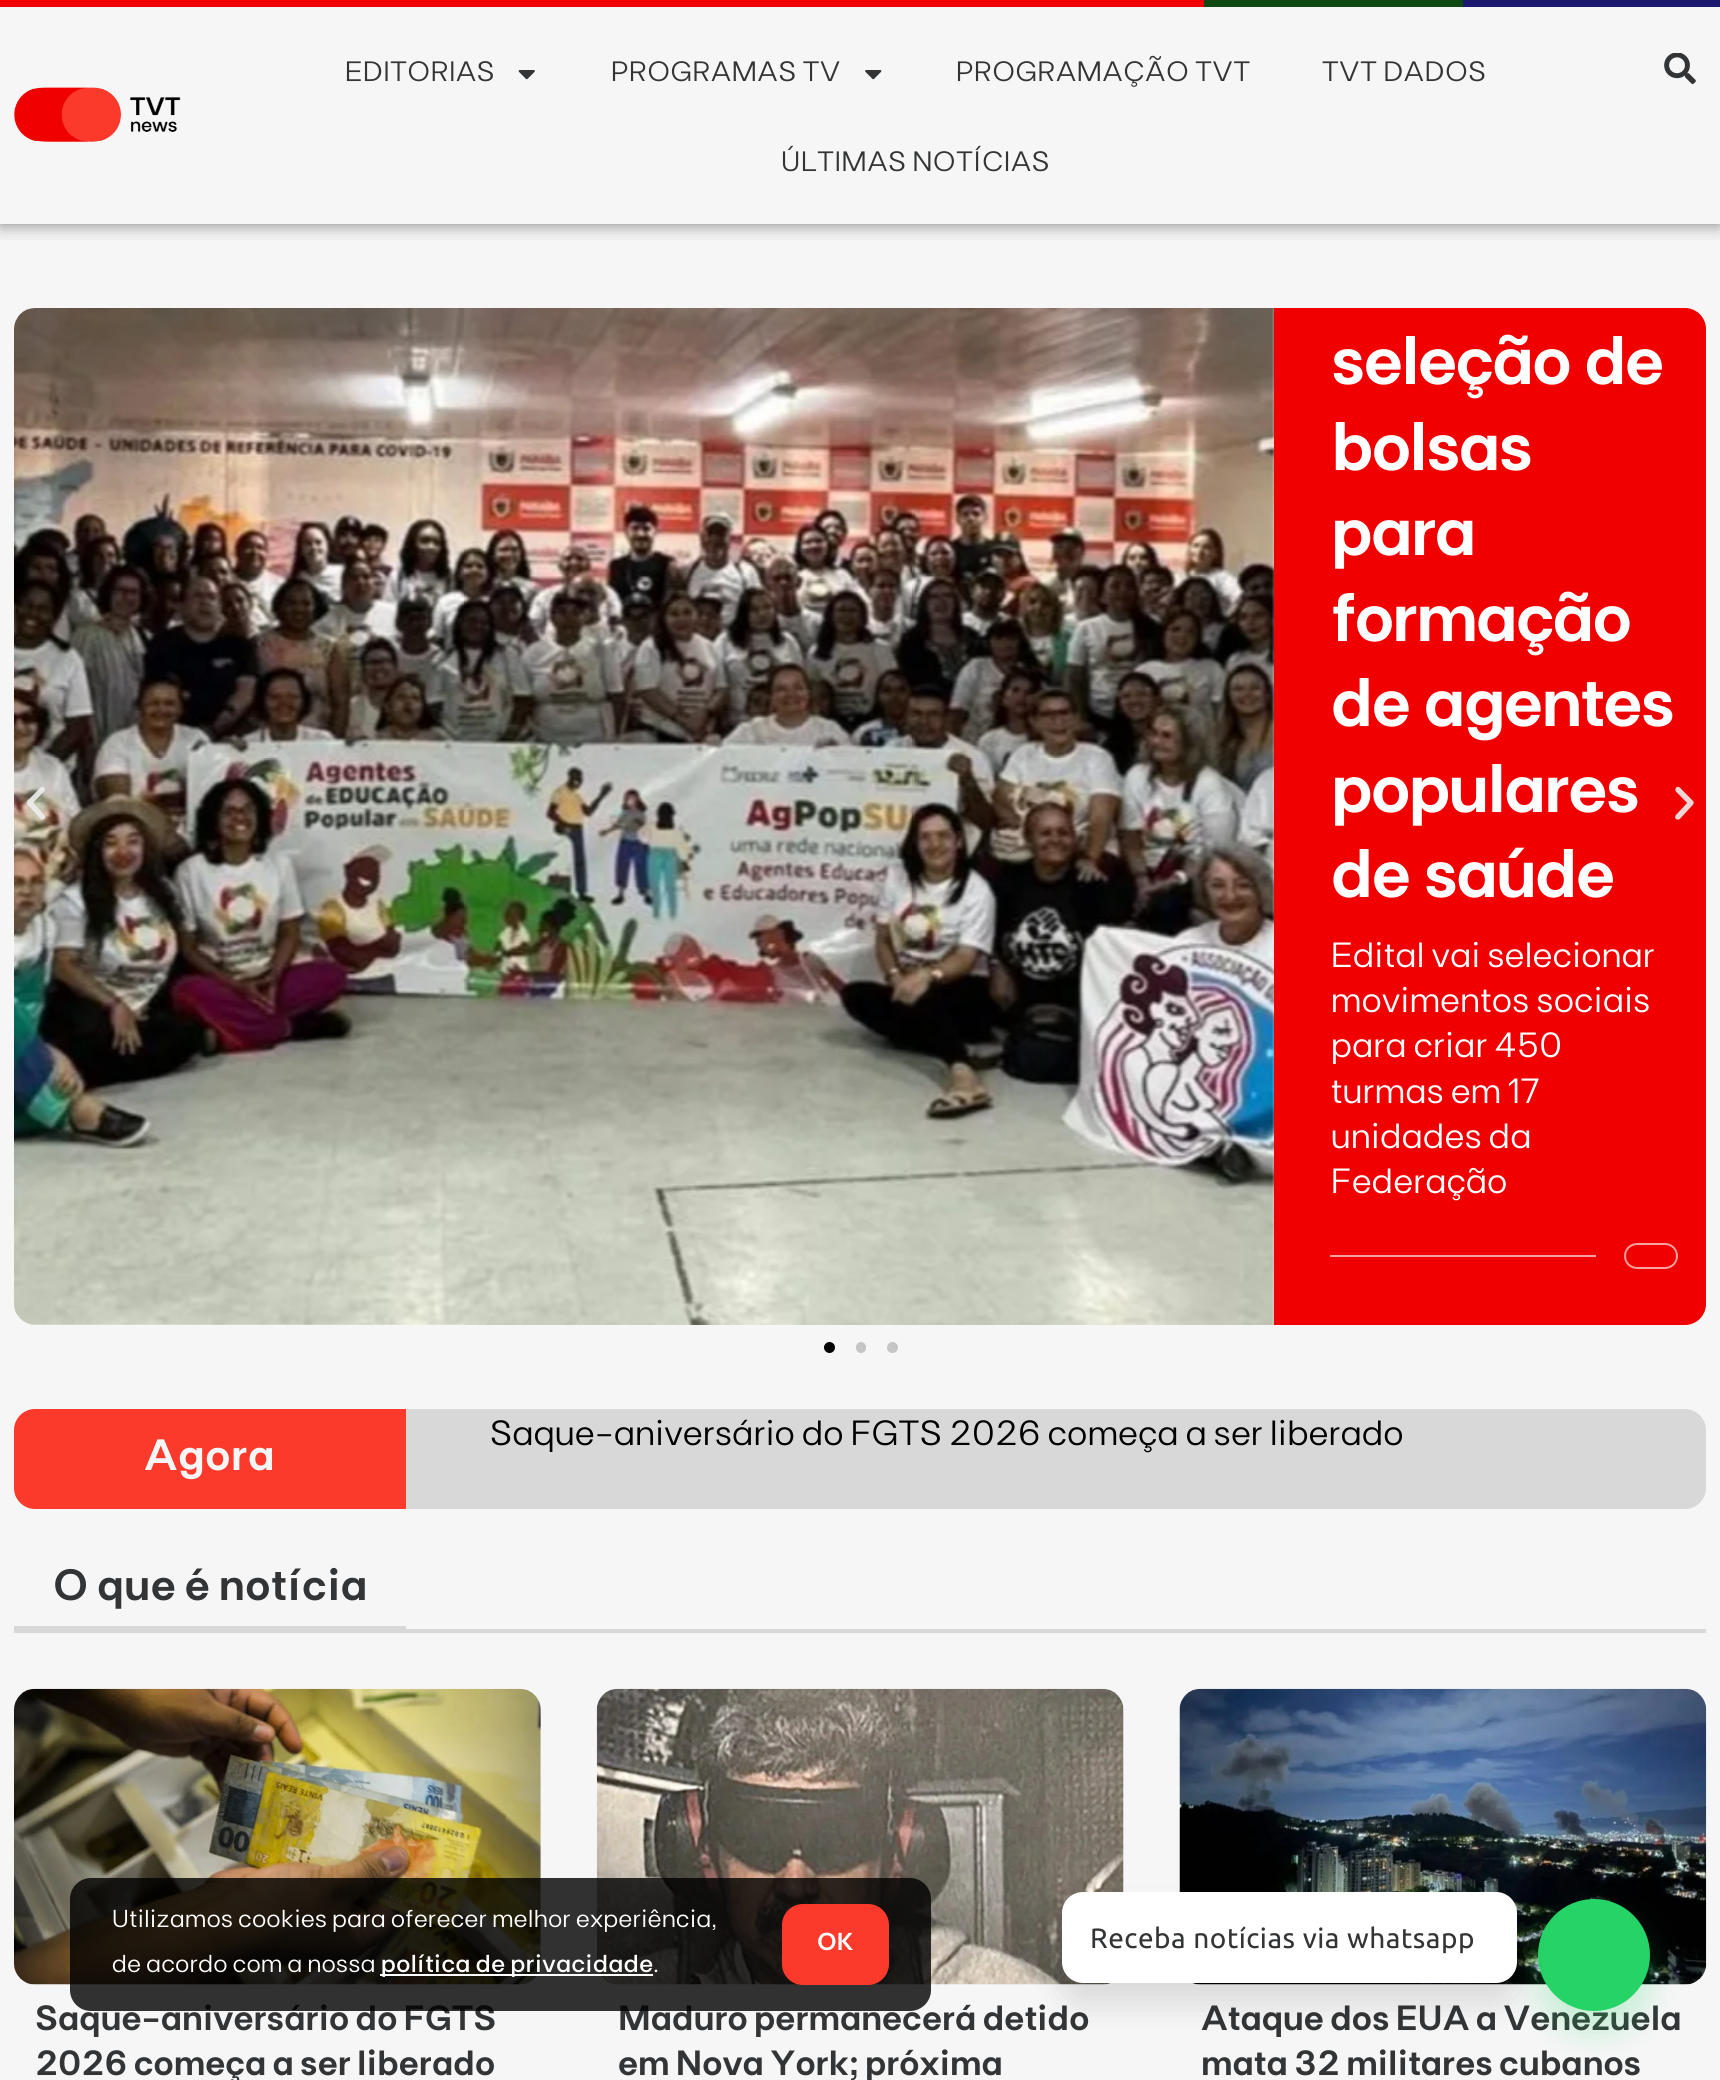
import math
import cairo

surface = cairo.ImageSurface(cairo.FORMAT_RGB24, 1720, 2080)
ctx = cairo.Context(surface)
options = cairo.FontOptions()
options.set_hint_metrics(cairo.HINT_METRICS_OFF)
options.set_hint_style(cairo.HINT_STYLE_NONE)
ctx.set_font_options(options)
ctx.set_miter_limit(4)


def set_color(code):
    ctx.set_source_rgb(*(v / 255 for v in bytes.fromhex(code[-6:])))


def draw_text(x, y, s, family, size, color, bold=False, italic=False):
    ctx.select_font_face(family, cairo.FONT_SLANT_ITALIC if italic else cairo.FONT_SLANT_NORMAL, cairo.FONT_WEIGHT_BOLD if bold else cairo.FONT_WEIGHT_NORMAL)
    ctx.set_font_size(size)
    set_color(color)
    ctx.move_to(x, y)
    ctx.show_text(s)


def draw_spaced(x, y, s, letter, word):
    ctx.move_to(x, y)
    for ch in s:
        ctx.show_text(ch)
        ctx.rel_move_to(letter + word * (ch == ' '), 0)


def fill_rect(x, y, w, h, color):
    set_color(color)
    ctx.rectangle(x, y, w, h)
    ctx.fill()


def rounded_rect(x, y, w, h, r):
    ctx.new_sub_path()
    for i, (u, v) in enumerate([(x + w - r, y + h - r), (x + r, y + h - r), (x + r, y + r), (x + w - r, y + r)]):
        ctx.arc(u, v, r, i * math.pi / 2, (i + 1) * math.pi / 2)
    ctx.close_path()


def draw_shadow(x, y, w, h, r, blur, alpha):
    ctx.push_group_with_content(cairo.CONTENT_ALPHA)
    ctx.set_operator(cairo.OPERATOR_SOURCE)
    for i in range(15, -16, -2):
        e = blur * i / 6
        if min(w, h) + 2 * e > 0:
            ctx.set_source_rgba(0, 0, 0, alpha * math.erfc((i - 1) / 8.5) / 2)
            rounded_rect(x - e, y - e, w + 2 * e, h + 2 * e, max(0, min(r + e + blur * .6, min(w, h) / 2 + e)))
            ctx.fill()
    ctx.mask(ctx.pop_group())


def draw_image(path, x, y, w, h):
    ctx.save()
    ctx.set_source_surface(cairo.ImageSurface.create_from_png(path), x, y)
    ctx.rectangle(x, y, w, h)
    ctx.fill()
    ctx.restore()


set_color("#f6f6f6")
ctx.paint()
ctx.save()
ctx.rectangle(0, 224, 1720, 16)
ctx.clip()
set_color("#000000")
draw_shadow(0, 0, 1720, 224, 0, 9, 0.5)
ctx.restore()
fill_rect(0, 0, 1204, 7, "#f00000")
fill_rect(1204, 0, 259, 7, "#0d4910")
fill_rect(1463, 0, 257, 7, "#19196d")
draw_image("assets/img1.png", 14, 87, 167, 55)
ctx.select_font_face("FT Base")
ctx.set_font_size(28)
set_color("#323436")
draw_spaced(345, 81, "EDITORIAS", 0.8, 0)
draw_image("assets/img2.png", 518, 70, 17, 10)
draw_spaced(611, 81, "PROGRAMAS TV", 0.8, 0)
draw_image("assets/img3.png", 865, 70, 17, 10)
draw_spaced(956, 81, "PROGRAMAÇÃO TVT", 0.8, 0)
draw_spaced(1322, 81, "TVT DADOS", 0.8, 0)
draw_spaced(781, 171, "ÚLTIMAS NOTÍCIAS", 0.8, 0)
draw_image("assets/img4.png", 1664, 53, 32, 31)
draw_image("assets/img6.png", 14, 308, 1260, 1017)
draw_image("assets/img5.png", 26, 786, 20, 34)
set_color("#f00000")
ctx.new_path()
ctx.move_to(1274, 308)
ctx.line_to(1685, 308)
ctx.curve_to(1696.5, 308, 1706, 317.5, 1706, 329)
ctx.line_to(1706, 1304)
ctx.curve_to(1706, 1315.5, 1696.5, 1325, 1685, 1325)
ctx.line_to(1274, 1325)
ctx.close_path()
ctx.fill()
ctx.select_font_face("FT Base SemiBold")
ctx.set_font_size(68.5)
set_color("#ffffff")
draw_spaced(1331, 384, "seleção de", -1.75, 4)
draw_spaced(1331, 470, "bolsas", -1.75, 0)
draw_spaced(1331, 555, "para", -1.75, 0)
draw_spaced(1331, 641, "formação", -1.75, 0)
draw_spaced(1331, 726, "de agentes", -1.75, 4)
draw_spaced(1331, 812, "populares", -1.75, 0)
draw_spaced(1331, 897, "de saúde", -1.75, 4)
ctx.select_font_face("FT Base")
ctx.set_font_size(35)
draw_spaced(1331, 967, "Edital vai selecionar", 0.53, 0)
draw_spaced(1331, 1012, "movimentos sociais", 0.53, 0)
draw_spaced(1331, 1057, "para criar 450", 0.53, 0)
draw_spaced(1331, 1103, "turmas em 17", 0.53, 0)
draw_spaced(1331, 1148, "unidades da", 0.53, 0)
draw_spaced(1331, 1193, "Federação", 0.53, 0)
fill_rect(1330, 1255, 266, 2, "#f9a0a0")
rounded_rect(1625, 1244, 52, 24, 12)
ctx.stroke()
draw_image("assets/img7.png", 1675, 786, 19, 34)
set_color("#000000")
ctx.arc(829.5, 1347.5, 5.5, 0, 2 * math.pi)
ctx.fill()
set_color("#c5c5c5")
rounded_rect(856, 1342, 10, 11, 5)
ctx.fill()
ctx.arc(892.5, 1347.5, 5.5, 0, 2 * math.pi)
ctx.fill()
set_color("#fc3a2b")
ctx.new_path()
ctx.move_to(35, 1409)
ctx.line_to(406, 1409)
ctx.line_to(406, 1509)
ctx.line_to(35, 1509)
ctx.curve_to(23.5, 1509, 14, 1499.5, 14, 1488)
ctx.line_to(14, 1430)
ctx.curve_to(14, 1418.5, 23.5, 1409, 35, 1409)
ctx.close_path()
ctx.fill()
ctx.select_font_face("FT Base SemiBold")
ctx.set_font_size(43.75)
set_color("#f6f6f6")
draw_spaced(144, 1470, "Agora", 0.53, 0)
set_color("#d9d8d8")
ctx.new_path()
ctx.move_to(406, 1409)
ctx.line_to(1685, 1409)
ctx.curve_to(1696.5, 1409, 1706, 1418.5, 1706, 1430)
ctx.line_to(1706, 1488)
ctx.curve_to(1706, 1499.5, 1696.5, 1509, 1685, 1509)
ctx.line_to(406, 1509)
ctx.close_path()
ctx.fill()
ctx.select_font_face("FT Base")
ctx.set_font_size(35)
set_color("#000000")
draw_spaced(490, 1445, "Saque-aniversário do FGTS 2026 começa a ser liberado", 0.53, 0)
fill_rect(14, 1626, 392, 7, "#d9d8d8")
ctx.select_font_face("FT Base SemiBold")
ctx.set_font_size(43.75)
set_color("#323436")
draw_spaced(53, 1600, "O que é notícia", 0.53, 0)
fill_rect(406, 1629, 1300, 4, "#d9d8d8")
draw_image("assets/img8.png", 14, 1688, 527, 297)
draw_text(35, 2030, "Saque-aniversário do FGTS", "FT Base SemiBold", 35, "#323436")
draw_text(35, 2075, "2026 começa a ser liberado", "FT Base SemiBold", 35, "#323436")
draw_image("assets/img9.png", 596, 1688, 528, 297)
draw_text(618, 2030, "Maduro permanecerá detido", "FT Base SemiBold", 35, "#323436")
draw_text(618, 2075, "em Nova York; próxima", "FT Base SemiBold", 35, "#323436")
draw_image("assets/img10.png", 1179, 1688, 528, 297)
draw_text(1201, 2030, "Ataque dos EUA a Venezuela", "FT Base SemiBold", 35, "#323436")
draw_text(1201, 2075, "mata 32 militares cubanos", "FT Base SemiBold", 35, "#323436")
ctx.set_source_rgba(0, 0, 0, 0.8)
rounded_rect(70, 1878, 861, 133, 21)
ctx.fill()
ctx.select_font_face("FT Base")
ctx.set_font_size(24.5)
set_color("#ffffff")
draw_spaced(112, 1927, "Utilizamos cookies para oferecer melhor experiência,", 0.53, 0)
draw_spaced(112, 1972, "de acordo com a nossa", 0.53, 0)
fill_rect(380, 1974, 273, 2, "#ffffff")
ctx.select_font_face("FT Base Medium")
draw_spaced(381, 1972, "política de privacidade", 0.53, 0)
ctx.select_font_face("FT Base")
draw_spaced(653, 1972, ".", 0.53, 0)
set_color("#fc3a2b")
rounded_rect(782, 1904, 107, 81, 21)
ctx.fill()
draw_text(817, 1950, "OK", "FT Base SemiBold", 24.5, "#ffffff")
set_color("#25d366")
draw_shadow(1538, 1920, 112, 112, 56, 16, 0.24)
set_color("#25d366")
ctx.arc(1594, 1955, 56, 0, 2 * math.pi)
ctx.fill()
set_color("#000000")
draw_shadow(1062, 1913, 455, 91, 21, 16, 0.12)
set_color("#ffffff")
rounded_rect(1062, 1892, 455, 91, 21)
ctx.fill()
ctx.select_font_face("Ubuntu")
ctx.set_font_size(28)
set_color("#323436")
draw_spaced(1090, 1948, "Receba notícias via whatsapp", 0.53, 0)
surface.write_to_png("output.png")
